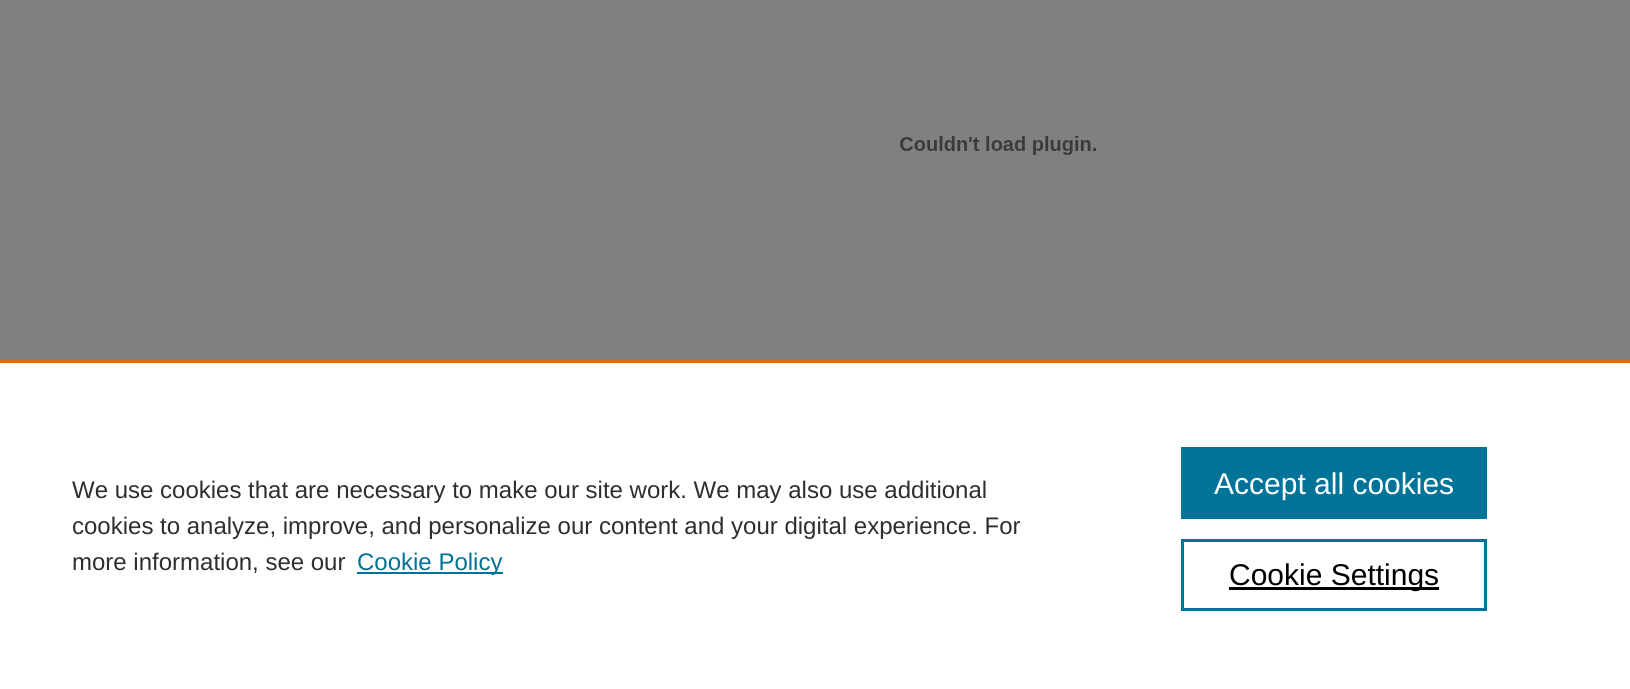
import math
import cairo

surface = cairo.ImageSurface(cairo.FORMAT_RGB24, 1630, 689)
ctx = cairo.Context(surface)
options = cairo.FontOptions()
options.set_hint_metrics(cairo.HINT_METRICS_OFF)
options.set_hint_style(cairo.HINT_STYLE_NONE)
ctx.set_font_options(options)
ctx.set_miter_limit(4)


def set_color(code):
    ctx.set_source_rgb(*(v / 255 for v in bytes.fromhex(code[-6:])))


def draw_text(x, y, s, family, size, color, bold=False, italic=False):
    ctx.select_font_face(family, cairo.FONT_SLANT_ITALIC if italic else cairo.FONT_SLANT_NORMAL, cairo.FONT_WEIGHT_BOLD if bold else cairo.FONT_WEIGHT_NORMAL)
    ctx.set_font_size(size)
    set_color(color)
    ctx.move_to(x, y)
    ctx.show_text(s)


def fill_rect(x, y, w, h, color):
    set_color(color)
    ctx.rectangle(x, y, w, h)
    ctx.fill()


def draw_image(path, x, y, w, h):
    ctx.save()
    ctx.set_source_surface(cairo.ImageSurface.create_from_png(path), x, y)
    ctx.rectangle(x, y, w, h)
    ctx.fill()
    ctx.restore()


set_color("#808080")
ctx.paint()
draw_image("assets/img1.png", 900, 136, 196, 19)
fill_rect(0, 363, 1630, 326, "#ffffff")
fill_rect(0, 360, 1630, 3, "#eb6500")
draw_text(72, 498, "We use cookies that are necessary to make our site work. We may also use additional", "Liberation Sans", 24, "#2e2e2e")
draw_text(72, 534, "cookies to analyze, improve, and personalize our content and your digital experience. For", "Liberation Sans", 24, "#2e2e2e")
draw_text(72, 570, "more information, see our", "Liberation Sans", 24, "#2e2e2e")
fill_rect(357, 572, 146, 2, "#007398")
draw_text(357, 570, "Cookie Policy", "Liberation Sans", 24, "#007398")
fill_rect(1181, 447, 306, 72, "#007398")
draw_text(1214, 494, "Accept all cookies", "Liberation Sans", 30, "#ffffff")
ctx.rectangle(1182.5, 540.5, 303, 69)
set_color("#007398")
ctx.set_line_width(3)
ctx.stroke()
fill_rect(1229, 587, 210, 3, "#000000")
draw_text(1229, 585, "Cookie Settings", "Liberation Sans", 30, "#000000")
surface.write_to_png("output.png")
